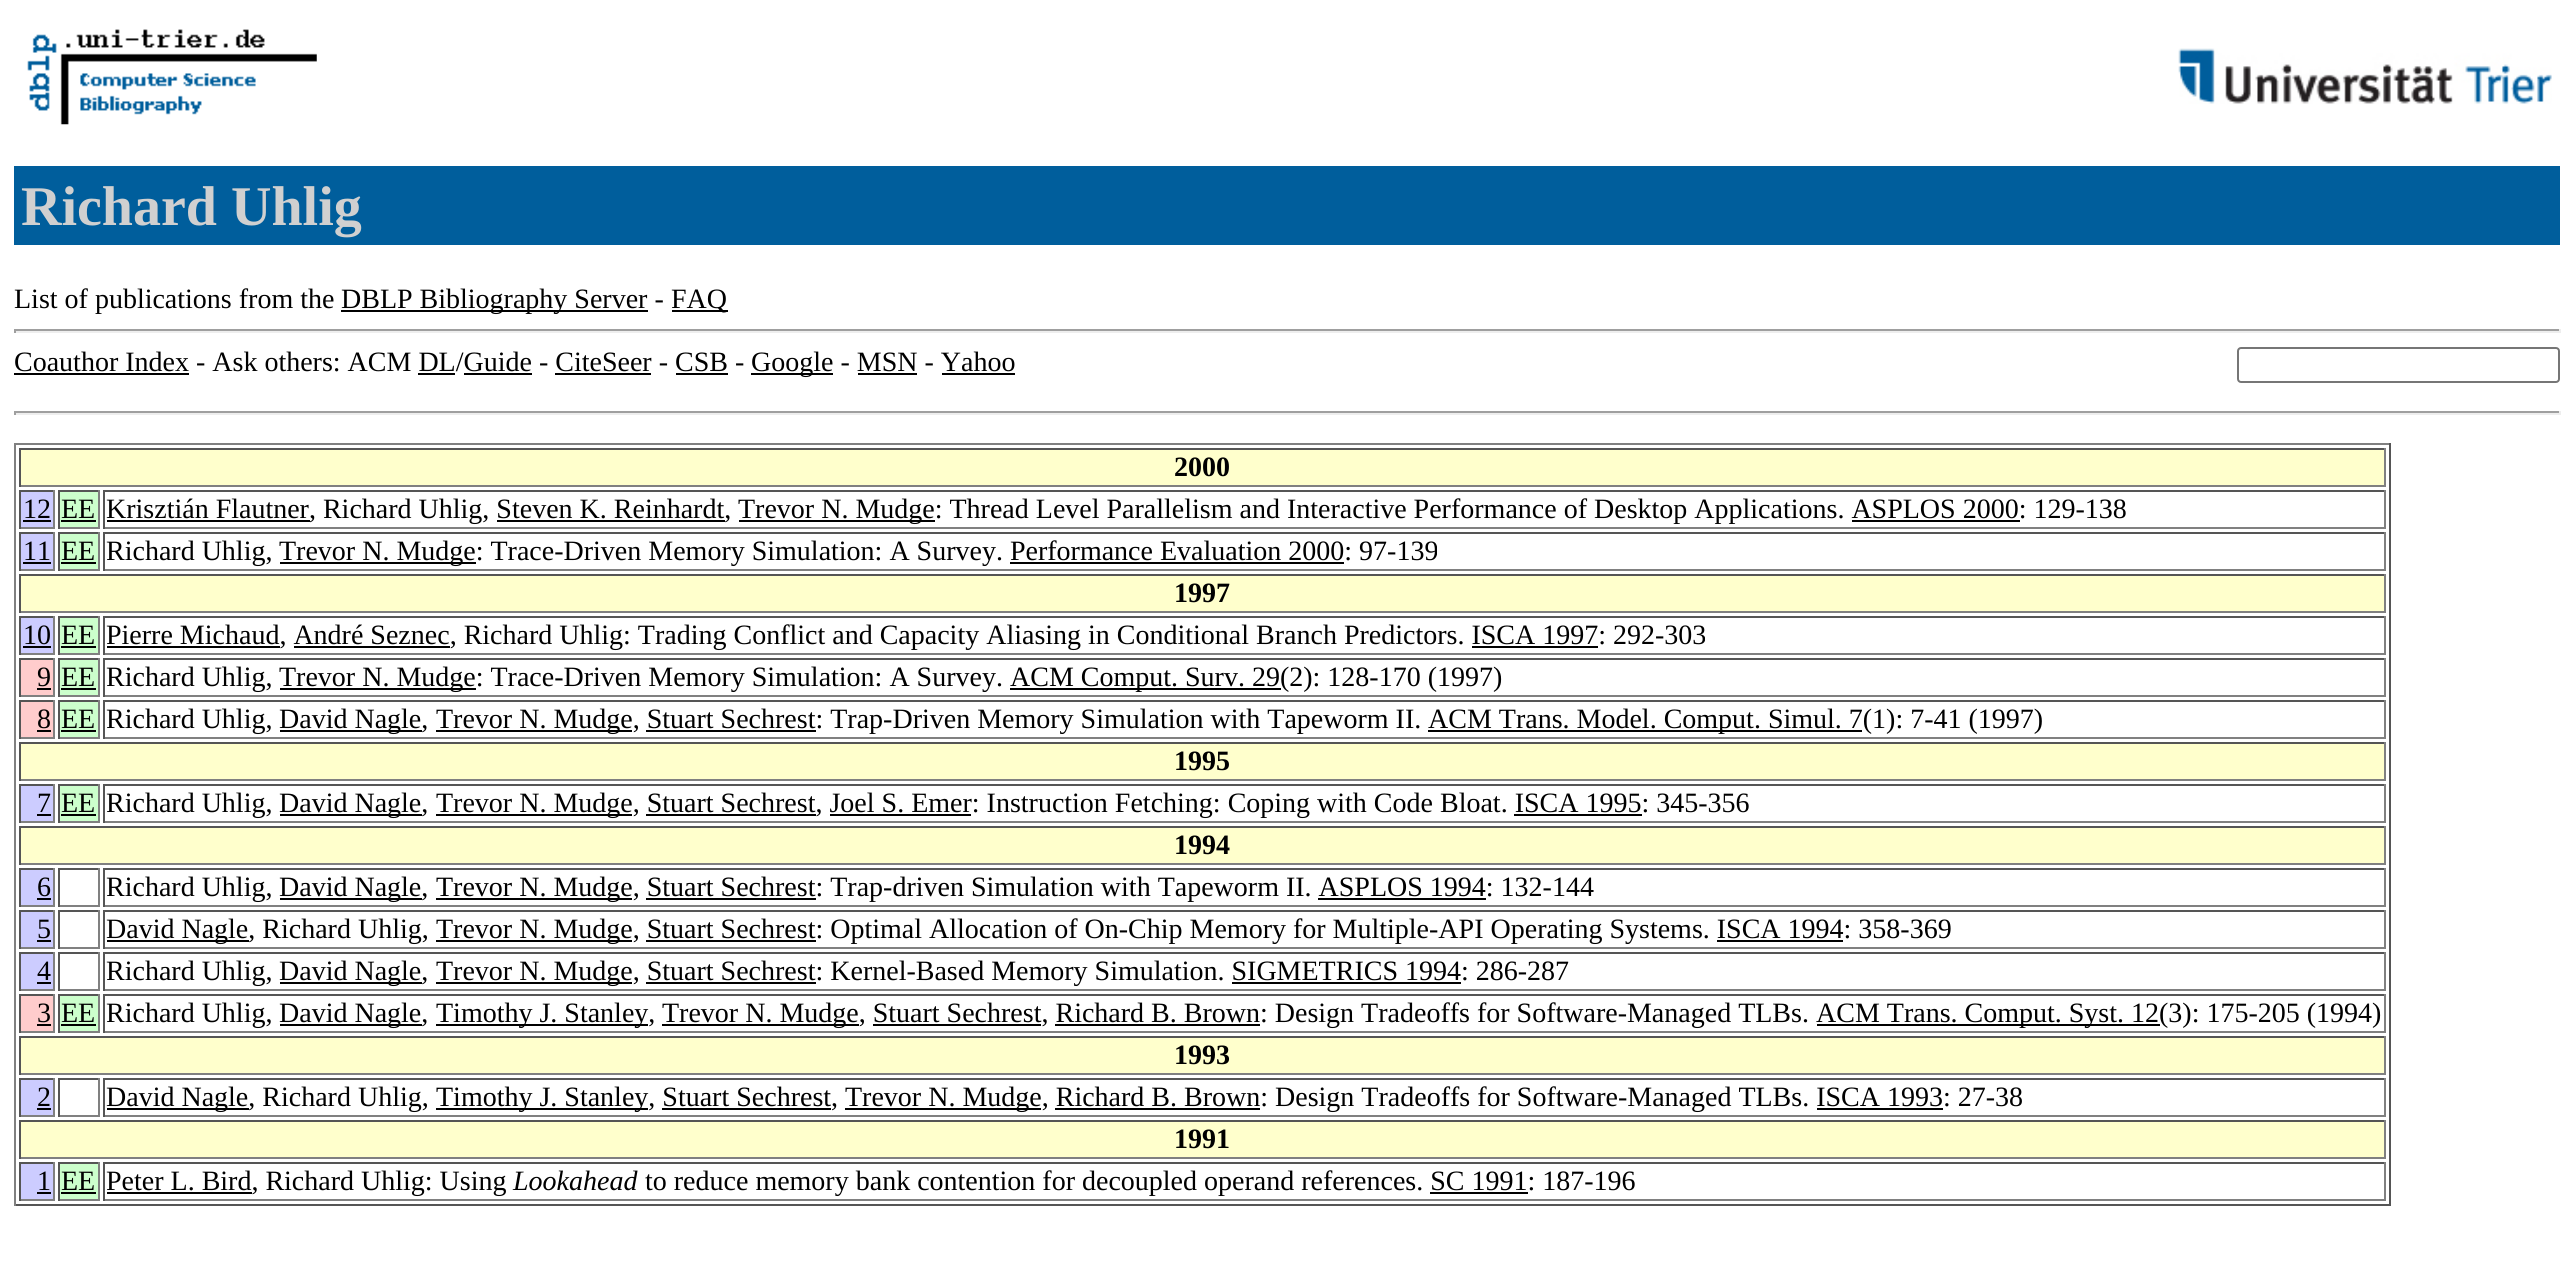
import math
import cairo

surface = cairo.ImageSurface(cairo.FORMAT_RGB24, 2573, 1263)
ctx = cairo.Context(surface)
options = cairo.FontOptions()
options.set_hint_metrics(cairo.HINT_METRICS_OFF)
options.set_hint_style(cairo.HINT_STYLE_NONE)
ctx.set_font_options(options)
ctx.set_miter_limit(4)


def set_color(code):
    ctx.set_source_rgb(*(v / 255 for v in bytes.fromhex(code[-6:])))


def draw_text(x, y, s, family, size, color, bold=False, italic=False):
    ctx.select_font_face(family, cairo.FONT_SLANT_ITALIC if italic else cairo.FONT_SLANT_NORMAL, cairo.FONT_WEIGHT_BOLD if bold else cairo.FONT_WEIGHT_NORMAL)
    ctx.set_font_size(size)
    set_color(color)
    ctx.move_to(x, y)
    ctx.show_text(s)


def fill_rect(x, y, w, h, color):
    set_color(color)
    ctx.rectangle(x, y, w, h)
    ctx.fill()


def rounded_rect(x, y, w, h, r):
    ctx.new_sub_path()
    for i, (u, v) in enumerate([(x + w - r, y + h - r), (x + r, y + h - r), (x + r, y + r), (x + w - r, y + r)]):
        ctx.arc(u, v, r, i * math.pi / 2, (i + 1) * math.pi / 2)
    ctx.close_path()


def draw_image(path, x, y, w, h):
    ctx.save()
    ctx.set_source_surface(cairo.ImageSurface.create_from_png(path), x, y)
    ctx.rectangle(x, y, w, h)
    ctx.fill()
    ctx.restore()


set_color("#ffffff")
ctx.paint()
draw_image("assets/img1.png", 27, 29, 290, 96)
draw_image("assets/img2.png", 2178, 48, 374, 56)
fill_rect(14, 166, 2546, 79, "#005e9c")
draw_text(21, 225, "Richard Uhlig", "Liberation Serif", 56, "#d0d0d0", bold=True)
draw_text(14, 308, "List of publications from the", "Liberation Serif", 28, "#000000")
fill_rect(341, 310, 307, 2, "#000000")
draw_text(341, 308, "DBLP Bibliography Server -", "Liberation Serif", 28, "#000000")
fill_rect(672, 310, 56, 2, "#000000")
draw_text(671, 308, "FAQ", "Liberation Serif", 28, "#000000")
fill_rect(14, 329, 2546, 2, "#9f9f9f")
fill_rect(2559, 329, 2, 4, "#eeeeee")
fill_rect(14, 331, 2546, 2, "#eeeeee")
fill_rect(14, 329, 2, 4, "#9f9f9f")
draw_text(14, 371, "Coauthor Index - Ask others: ACM DL/Guide - CiteSeer - CSB -", "Liberation Serif", 28, "#000000")
fill_rect(14, 373, 175, 2, "#000000")
fill_rect(751, 373, 82, 2, "#000000")
draw_text(751, 371, "Google - MSN - Yahoo", "Liberation Serif", 28, "#000000")
rounded_rect(2238, 348, 321, 34, 3)
set_color("#767676")
ctx.stroke()
fill_rect(418, 373, 37, 2, "#000000")
fill_rect(464, 373, 68, 2, "#000000")
fill_rect(555, 373, 96, 2, "#000000")
fill_rect(676, 373, 52, 2, "#000000")
fill_rect(858, 373, 59, 2, "#000000")
fill_rect(942, 373, 73, 2, "#000000")
fill_rect(14, 411, 2546, 2, "#9f9f9f")
fill_rect(2559, 411, 2, 4, "#eeeeee")
fill_rect(14, 413, 2546, 2, "#eeeeee")
fill_rect(14, 411, 2, 4, "#9f9f9f")
fill_rect(14, 443, 2377, 2, "#808080")
fill_rect(2389, 443, 2, 763, "#555555")
fill_rect(14, 1204, 2377, 2, "#555555")
fill_rect(14, 443, 2, 763, "#808080")
fill_rect(21, 450, 2363, 35, "#ffffcc")
fill_rect(19, 448, 2366, 2, "#555555")
fill_rect(2384, 448, 2, 39, "#808080")
fill_rect(19, 485, 2366, 2, "#808080")
fill_rect(19, 448, 2, 39, "#555555")
draw_text(1174, 476, "2000", "Liberation Serif", 28, "#000000", bold=True)
fill_rect(21, 492, 32, 35, "#ccccff")
fill_rect(19, 490, 35, 2, "#555555")
fill_rect(53, 490, 2, 39, "#808080")
fill_rect(19, 527, 35, 2, "#808080")
fill_rect(19, 490, 2, 39, "#555555")
draw_text(23, 518, "12", "Liberation Serif", 28, "#000000")
fill_rect(23, 520, 28, 2, "#000000")
fill_rect(60, 492, 38, 35, "#ccffcc")
fill_rect(58, 490, 42, 2, "#555555")
fill_rect(98, 490, 2, 39, "#808080")
fill_rect(58, 527, 42, 2, "#808080")
fill_rect(58, 490, 2, 39, "#555555")
draw_text(61, 518, "EE", "Liberation Serif", 28, "#000000")
fill_rect(61, 520, 35, 2, "#000000")
fill_rect(103, 490, 2282, 2, "#555555")
fill_rect(2384, 490, 2, 39, "#808080")
fill_rect(103, 527, 2282, 2, "#808080")
fill_rect(103, 490, 2, 39, "#555555")
fill_rect(107, 520, 203, 2, "#000000")
draw_text(106, 518, "Krisztián Flautner, Richard Uhlig, Steven K. Reinhardt,", "Liberation Serif", 28, "#000000")
fill_rect(739, 520, 196, 2, "#000000")
draw_text(738, 518, "Trevor N. Mudge: Thread Level Parallelism and Interactive Performance of Desktop Applications. ASPLOS 2000: 129-138", "Liberation Serif", 28, "#000000")
fill_rect(497, 520, 228, 2, "#000000")
fill_rect(1852, 520, 168, 2, "#000000")
fill_rect(21, 534, 32, 35, "#ccccff")
fill_rect(19, 532, 35, 2, "#555555")
fill_rect(53, 532, 2, 39, "#808080")
fill_rect(19, 569, 35, 2, "#808080")
fill_rect(19, 532, 2, 39, "#555555")
draw_text(23, 560, "11", "Liberation Serif", 28, "#000000")
fill_rect(23, 562, 28, 2, "#000000")
fill_rect(60, 534, 38, 35, "#ccffcc")
fill_rect(58, 532, 42, 2, "#555555")
fill_rect(98, 532, 2, 39, "#808080")
fill_rect(58, 569, 42, 2, "#808080")
fill_rect(58, 532, 2, 39, "#555555")
draw_text(61, 560, "EE", "Liberation Serif", 28, "#000000")
fill_rect(61, 562, 35, 2, "#000000")
fill_rect(103, 532, 2282, 2, "#555555")
fill_rect(2384, 532, 2, 39, "#808080")
fill_rect(103, 569, 2282, 2, "#808080")
fill_rect(103, 532, 2, 39, "#555555")
draw_text(106, 560, "Richard Uhlig,", "Liberation Serif", 28, "#000000")
fill_rect(280, 562, 196, 2, "#000000")
draw_text(279, 560, "Trevor N. Mudge: Trace-Driven Memory Simulation: A Survey. Performance Evaluation 2000: 97-139", "Liberation Serif", 28, "#000000")
fill_rect(1010, 562, 334, 2, "#000000")
fill_rect(21, 576, 2363, 35, "#ffffcc")
fill_rect(19, 574, 2366, 2, "#555555")
fill_rect(2384, 574, 2, 39, "#808080")
fill_rect(19, 611, 2366, 2, "#808080")
fill_rect(19, 574, 2, 39, "#555555")
draw_text(1174, 602, "1997", "Liberation Serif", 28, "#000000", bold=True)
fill_rect(21, 618, 32, 35, "#ccccff")
fill_rect(19, 616, 35, 2, "#555555")
fill_rect(53, 616, 2, 39, "#808080")
fill_rect(19, 653, 35, 2, "#808080")
fill_rect(19, 616, 2, 39, "#555555")
draw_text(23, 644, "10", "Liberation Serif", 28, "#000000")
fill_rect(23, 646, 28, 2, "#000000")
fill_rect(60, 618, 38, 35, "#ccffcc")
fill_rect(58, 616, 42, 2, "#555555")
fill_rect(98, 616, 2, 39, "#808080")
fill_rect(58, 653, 42, 2, "#808080")
fill_rect(58, 616, 2, 39, "#555555")
draw_text(61, 644, "EE", "Liberation Serif", 28, "#000000")
fill_rect(61, 646, 35, 2, "#000000")
fill_rect(103, 616, 2282, 2, "#555555")
fill_rect(2384, 616, 2, 39, "#808080")
fill_rect(103, 653, 2282, 2, "#808080")
fill_rect(103, 616, 2, 39, "#555555")
fill_rect(107, 646, 173, 2, "#000000")
draw_text(106, 644, "Pierre Michaud, André Seznec, Richard Uhlig: Trading Conflict and Capacity Aliasing in Conditional Branch Predictors. ISCA 1997: 292-303", "Liberation Serif", 28, "#000000")
fill_rect(294, 646, 156, 2, "#000000")
fill_rect(1472, 646, 126, 2, "#000000")
fill_rect(21, 660, 32, 35, "#ffcccc")
fill_rect(19, 658, 35, 2, "#555555")
fill_rect(53, 658, 2, 39, "#808080")
fill_rect(19, 695, 35, 2, "#808080")
fill_rect(19, 658, 2, 39, "#555555")
draw_text(37, 686, "9", "Liberation Serif", 28, "#000000")
fill_rect(37, 688, 14, 2, "#000000")
fill_rect(60, 660, 38, 35, "#ccffcc")
fill_rect(58, 658, 42, 2, "#555555")
fill_rect(98, 658, 2, 39, "#808080")
fill_rect(58, 695, 42, 2, "#808080")
fill_rect(58, 658, 2, 39, "#555555")
draw_text(61, 686, "EE", "Liberation Serif", 28, "#000000")
fill_rect(61, 688, 35, 2, "#000000")
fill_rect(103, 658, 2282, 2, "#555555")
fill_rect(2384, 658, 2, 39, "#808080")
fill_rect(103, 695, 2282, 2, "#808080")
fill_rect(103, 658, 2, 39, "#555555")
draw_text(106, 686, "Richard Uhlig,", "Liberation Serif", 28, "#000000")
fill_rect(280, 688, 196, 2, "#000000")
draw_text(279, 686, "Trevor N. Mudge: Trace-Driven Memory Simulation: A Survey.", "Liberation Serif", 28, "#000000")
fill_rect(1010, 688, 271, 2, "#000000")
draw_text(1010, 686, "ACM Comput. Surv. 29(2): 128-170 (1997)", "Liberation Serif", 28, "#000000")
fill_rect(21, 702, 32, 35, "#ffcccc")
fill_rect(19, 700, 35, 2, "#555555")
fill_rect(53, 700, 2, 39, "#808080")
fill_rect(19, 737, 35, 2, "#808080")
fill_rect(19, 700, 2, 39, "#555555")
draw_text(37, 728, "8", "Liberation Serif", 28, "#000000")
fill_rect(37, 730, 14, 2, "#000000")
fill_rect(60, 702, 38, 35, "#ccffcc")
fill_rect(58, 700, 42, 2, "#555555")
fill_rect(98, 700, 2, 39, "#808080")
fill_rect(58, 737, 42, 2, "#808080")
fill_rect(58, 700, 2, 39, "#555555")
draw_text(61, 728, "EE", "Liberation Serif", 28, "#000000")
fill_rect(61, 730, 35, 2, "#000000")
fill_rect(103, 700, 2282, 2, "#555555")
fill_rect(2384, 700, 2, 39, "#808080")
fill_rect(103, 737, 2282, 2, "#808080")
fill_rect(103, 700, 2, 39, "#555555")
draw_text(106, 728, "Richard Uhlig,", "Liberation Serif", 28, "#000000")
fill_rect(280, 730, 142, 2, "#000000")
draw_text(279, 728, "David Nagle,", "Liberation Serif", 28, "#000000")
fill_rect(436, 730, 196, 2, "#000000")
draw_text(436, 728, "Trevor N. Mudge, Stuart Sechrest: Trap-Driven Memory Simulation with Tapeworm II.", "Liberation Serif", 28, "#000000")
fill_rect(1428, 730, 434, 2, "#000000")
draw_text(1428, 728, "ACM Trans. Model. Comput. Simul. 7(1): 7-41 (1997)", "Liberation Serif", 28, "#000000")
fill_rect(646, 730, 170, 2, "#000000")
fill_rect(21, 744, 2363, 35, "#ffffcc")
fill_rect(19, 742, 2366, 2, "#555555")
fill_rect(2384, 742, 2, 39, "#808080")
fill_rect(19, 779, 2366, 2, "#808080")
fill_rect(19, 742, 2, 39, "#555555")
draw_text(1174, 770, "1995", "Liberation Serif", 28, "#000000", bold=True)
fill_rect(21, 786, 32, 35, "#ccccff")
fill_rect(19, 784, 35, 2, "#555555")
fill_rect(53, 784, 2, 39, "#808080")
fill_rect(19, 821, 35, 2, "#808080")
fill_rect(19, 784, 2, 39, "#555555")
draw_text(37, 812, "7", "Liberation Serif", 28, "#000000")
fill_rect(37, 814, 14, 2, "#000000")
fill_rect(60, 786, 38, 35, "#ccffcc")
fill_rect(58, 784, 42, 2, "#555555")
fill_rect(98, 784, 2, 39, "#808080")
fill_rect(58, 821, 42, 2, "#808080")
fill_rect(58, 784, 2, 39, "#555555")
draw_text(61, 812, "EE", "Liberation Serif", 28, "#000000")
fill_rect(61, 814, 35, 2, "#000000")
fill_rect(103, 784, 2282, 2, "#555555")
fill_rect(2384, 784, 2, 39, "#808080")
fill_rect(103, 821, 2282, 2, "#808080")
fill_rect(103, 784, 2, 39, "#555555")
draw_text(106, 812, "Richard Uhlig,", "Liberation Serif", 28, "#000000")
fill_rect(280, 814, 142, 2, "#000000")
draw_text(279, 812, "David Nagle,", "Liberation Serif", 28, "#000000")
fill_rect(436, 814, 196, 2, "#000000")
draw_text(436, 812, "Trevor N. Mudge, Stuart Sechrest, Joel S. Emer: Instruction Fetching: Coping with Code Bloat. ISCA 1995: 345-356", "Liberation Serif", 28, "#000000")
fill_rect(646, 814, 170, 2, "#000000")
fill_rect(830, 814, 141, 2, "#000000")
fill_rect(1514, 814, 128, 2, "#000000")
fill_rect(21, 828, 2363, 35, "#ffffcc")
fill_rect(19, 826, 2366, 2, "#555555")
fill_rect(2384, 826, 2, 39, "#808080")
fill_rect(19, 863, 2366, 2, "#808080")
fill_rect(19, 826, 2, 39, "#555555")
draw_text(1174, 854, "1994", "Liberation Serif", 28, "#000000", bold=True)
fill_rect(21, 870, 32, 35, "#ccccff")
fill_rect(19, 868, 35, 2, "#555555")
fill_rect(53, 868, 2, 39, "#808080")
fill_rect(19, 905, 35, 2, "#808080")
fill_rect(19, 868, 2, 39, "#555555")
draw_text(37, 896, "6", "Liberation Serif", 28, "#000000")
fill_rect(37, 898, 14, 2, "#000000")
fill_rect(58, 868, 42, 2, "#555555")
fill_rect(98, 868, 2, 39, "#808080")
fill_rect(58, 905, 42, 2, "#808080")
fill_rect(58, 868, 2, 39, "#555555")
fill_rect(103, 868, 2282, 2, "#555555")
fill_rect(2384, 868, 2, 39, "#808080")
fill_rect(103, 905, 2282, 2, "#808080")
fill_rect(103, 868, 2, 39, "#555555")
draw_text(106, 896, "Richard Uhlig,", "Liberation Serif", 28, "#000000")
fill_rect(280, 898, 142, 2, "#000000")
draw_text(279, 896, "David Nagle,", "Liberation Serif", 28, "#000000")
fill_rect(436, 898, 196, 2, "#000000")
draw_text(436, 896, "Trevor N. Mudge, Stuart Sechrest: Trap-driven Simulation with Tapeworm II. ASPLOS 1994: 132-144", "Liberation Serif", 28, "#000000")
fill_rect(646, 898, 170, 2, "#000000")
fill_rect(1318, 898, 168, 2, "#000000")
fill_rect(21, 912, 32, 35, "#ccccff")
fill_rect(19, 910, 35, 2, "#555555")
fill_rect(53, 910, 2, 39, "#808080")
fill_rect(19, 947, 35, 2, "#808080")
fill_rect(19, 910, 2, 39, "#555555")
draw_text(37, 938, "5", "Liberation Serif", 28, "#000000")
fill_rect(37, 940, 14, 2, "#000000")
fill_rect(58, 910, 42, 2, "#555555")
fill_rect(98, 910, 2, 39, "#808080")
fill_rect(58, 947, 42, 2, "#808080")
fill_rect(58, 910, 2, 39, "#555555")
fill_rect(103, 910, 2282, 2, "#555555")
fill_rect(2384, 910, 2, 39, "#808080")
fill_rect(103, 947, 2282, 2, "#808080")
fill_rect(103, 910, 2, 39, "#555555")
fill_rect(107, 940, 142, 2, "#000000")
draw_text(106, 938, "David Nagle, Richard Uhlig,", "Liberation Serif", 28, "#000000")
fill_rect(436, 940, 196, 2, "#000000")
draw_text(436, 938, "Trevor N. Mudge, Stuart Sechrest: Optimal Allocation of On-Chip Memory for Multiple-API Operating Systems. ISCA 1994: 358-369", "Liberation Serif", 28, "#000000")
fill_rect(646, 940, 170, 2, "#000000")
fill_rect(1717, 940, 126, 2, "#000000")
fill_rect(21, 954, 32, 35, "#ccccff")
fill_rect(19, 952, 35, 2, "#555555")
fill_rect(53, 952, 2, 39, "#808080")
fill_rect(19, 989, 35, 2, "#808080")
fill_rect(19, 952, 2, 39, "#555555")
draw_text(37, 980, "4", "Liberation Serif", 28, "#000000")
fill_rect(37, 982, 14, 2, "#000000")
fill_rect(58, 952, 42, 2, "#555555")
fill_rect(98, 952, 2, 39, "#808080")
fill_rect(58, 989, 42, 2, "#808080")
fill_rect(58, 952, 2, 39, "#555555")
fill_rect(103, 952, 2282, 2, "#555555")
fill_rect(2384, 952, 2, 39, "#808080")
fill_rect(103, 989, 2282, 2, "#808080")
fill_rect(103, 952, 2, 39, "#555555")
draw_text(106, 980, "Richard Uhlig,", "Liberation Serif", 28, "#000000")
fill_rect(280, 982, 142, 2, "#000000")
draw_text(279, 980, "David Nagle,", "Liberation Serif", 28, "#000000")
fill_rect(436, 982, 196, 2, "#000000")
draw_text(436, 980, "Trevor N. Mudge, Stuart Sechrest: Kernel-Based Memory Simulation. SIGMETRICS 1994: 286-287", "Liberation Serif", 28, "#000000")
fill_rect(646, 982, 170, 2, "#000000")
fill_rect(1232, 982, 229, 2, "#000000")
fill_rect(21, 996, 32, 35, "#ffcccc")
fill_rect(19, 994, 35, 2, "#555555")
fill_rect(53, 994, 2, 39, "#808080")
fill_rect(19, 1031, 35, 2, "#808080")
fill_rect(19, 994, 2, 39, "#555555")
draw_text(37, 1022, "3", "Liberation Serif", 28, "#000000")
fill_rect(37, 1024, 14, 2, "#000000")
fill_rect(60, 996, 38, 35, "#ccffcc")
fill_rect(58, 994, 42, 2, "#555555")
fill_rect(98, 994, 2, 39, "#808080")
fill_rect(58, 1031, 42, 2, "#808080")
fill_rect(58, 994, 2, 39, "#555555")
draw_text(61, 1022, "EE", "Liberation Serif", 28, "#000000")
fill_rect(61, 1024, 35, 2, "#000000")
fill_rect(103, 994, 2282, 2, "#555555")
fill_rect(2384, 994, 2, 39, "#808080")
fill_rect(103, 1031, 2282, 2, "#808080")
fill_rect(103, 994, 2, 39, "#555555")
draw_text(106, 1022, "Richard Uhlig,", "Liberation Serif", 28, "#000000")
fill_rect(280, 1024, 142, 2, "#000000")
draw_text(279, 1022, "David Nagle,", "Liberation Serif", 28, "#000000")
fill_rect(436, 1024, 212, 2, "#000000")
draw_text(436, 1022, "Timothy J. Stanley,", "Liberation Serif", 28, "#000000")
fill_rect(662, 1024, 197, 2, "#000000")
draw_text(662, 1022, "Trevor N. Mudge, Stuart Sechrest, Richard B. Brown: Design Tradeoffs for Software-Managed TLBs.", "Liberation Serif", 28, "#000000")
fill_rect(1817, 1024, 343, 2, "#000000")
draw_text(1816, 1022, "ACM Trans. Comput. Syst. 12(3): 175-205 (1994)", "Liberation Serif", 28, "#000000")
fill_rect(873, 1024, 168, 2, "#000000")
fill_rect(1055, 1024, 205, 2, "#000000")
fill_rect(21, 1038, 2363, 35, "#ffffcc")
fill_rect(19, 1036, 2366, 2, "#555555")
fill_rect(2384, 1036, 2, 39, "#808080")
fill_rect(19, 1073, 2366, 2, "#808080")
fill_rect(19, 1036, 2, 39, "#555555")
draw_text(1174, 1064, "1993", "Liberation Serif", 28, "#000000", bold=True)
fill_rect(21, 1080, 32, 35, "#ccccff")
fill_rect(19, 1078, 35, 2, "#555555")
fill_rect(53, 1078, 2, 39, "#808080")
fill_rect(19, 1115, 35, 2, "#808080")
fill_rect(19, 1078, 2, 39, "#555555")
draw_text(37, 1106, "2", "Liberation Serif", 28, "#000000")
fill_rect(37, 1108, 14, 2, "#000000")
fill_rect(58, 1078, 42, 2, "#555555")
fill_rect(98, 1078, 2, 39, "#808080")
fill_rect(58, 1115, 42, 2, "#808080")
fill_rect(58, 1078, 2, 39, "#555555")
fill_rect(103, 1078, 2282, 2, "#555555")
fill_rect(2384, 1078, 2, 39, "#808080")
fill_rect(103, 1115, 2282, 2, "#808080")
fill_rect(103, 1078, 2, 39, "#555555")
fill_rect(107, 1108, 142, 2, "#000000")
draw_text(106, 1106, "David Nagle, Richard Uhlig,", "Liberation Serif", 28, "#000000")
fill_rect(436, 1108, 212, 2, "#000000")
draw_text(436, 1106, "Timothy J. Stanley, Stuart Sechrest,", "Liberation Serif", 28, "#000000")
fill_rect(845, 1108, 196, 2, "#000000")
draw_text(845, 1106, "Trevor N. Mudge, Richard B. Brown: Design Tradeoffs for Software-Managed TLBs. ISCA 1993: 27-38", "Liberation Serif", 28, "#000000")
fill_rect(662, 1108, 169, 2, "#000000")
fill_rect(1055, 1108, 205, 2, "#000000")
fill_rect(1817, 1108, 126, 2, "#000000")
fill_rect(21, 1122, 2363, 35, "#ffffcc")
fill_rect(19, 1120, 2366, 2, "#555555")
fill_rect(2384, 1120, 2, 39, "#808080")
fill_rect(19, 1157, 2366, 2, "#808080")
fill_rect(19, 1120, 2, 39, "#555555")
draw_text(1174, 1148, "1991", "Liberation Serif", 28, "#000000", bold=True)
fill_rect(21, 1164, 32, 35, "#ccccff")
fill_rect(19, 1162, 35, 2, "#555555")
fill_rect(53, 1162, 2, 39, "#808080")
fill_rect(19, 1199, 35, 2, "#808080")
fill_rect(19, 1162, 2, 39, "#555555")
draw_text(37, 1190, "1", "Liberation Serif", 28, "#000000")
fill_rect(37, 1192, 14, 2, "#000000")
fill_rect(60, 1164, 38, 35, "#ccffcc")
fill_rect(58, 1162, 42, 2, "#555555")
fill_rect(98, 1162, 2, 39, "#808080")
fill_rect(58, 1199, 42, 2, "#808080")
fill_rect(58, 1162, 2, 39, "#555555")
draw_text(61, 1190, "EE", "Liberation Serif", 28, "#000000")
fill_rect(61, 1192, 35, 2, "#000000")
fill_rect(103, 1162, 2282, 2, "#555555")
fill_rect(2384, 1162, 2, 39, "#808080")
fill_rect(103, 1199, 2282, 2, "#808080")
fill_rect(103, 1162, 2, 39, "#555555")
fill_rect(107, 1192, 145, 2, "#000000")
draw_text(106, 1190, "Peter L. Bird, Richard Uhlig: Using", "Liberation Serif", 28, "#000000")
draw_text(513, 1190, "Lookahead", "Liberation Serif", 28, "#000000", italic=True)
draw_text(645, 1190, "to reduce memory bank contention for decoupled operand references. SC 1991: 187-196", "Liberation Serif", 28, "#000000")
fill_rect(1430, 1192, 98, 2, "#000000")
surface.write_to_png("output.png")
